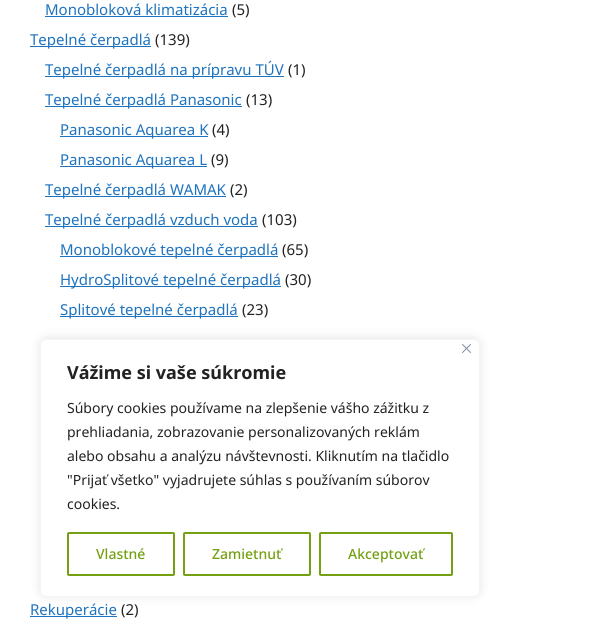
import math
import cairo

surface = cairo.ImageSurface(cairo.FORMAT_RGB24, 615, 637)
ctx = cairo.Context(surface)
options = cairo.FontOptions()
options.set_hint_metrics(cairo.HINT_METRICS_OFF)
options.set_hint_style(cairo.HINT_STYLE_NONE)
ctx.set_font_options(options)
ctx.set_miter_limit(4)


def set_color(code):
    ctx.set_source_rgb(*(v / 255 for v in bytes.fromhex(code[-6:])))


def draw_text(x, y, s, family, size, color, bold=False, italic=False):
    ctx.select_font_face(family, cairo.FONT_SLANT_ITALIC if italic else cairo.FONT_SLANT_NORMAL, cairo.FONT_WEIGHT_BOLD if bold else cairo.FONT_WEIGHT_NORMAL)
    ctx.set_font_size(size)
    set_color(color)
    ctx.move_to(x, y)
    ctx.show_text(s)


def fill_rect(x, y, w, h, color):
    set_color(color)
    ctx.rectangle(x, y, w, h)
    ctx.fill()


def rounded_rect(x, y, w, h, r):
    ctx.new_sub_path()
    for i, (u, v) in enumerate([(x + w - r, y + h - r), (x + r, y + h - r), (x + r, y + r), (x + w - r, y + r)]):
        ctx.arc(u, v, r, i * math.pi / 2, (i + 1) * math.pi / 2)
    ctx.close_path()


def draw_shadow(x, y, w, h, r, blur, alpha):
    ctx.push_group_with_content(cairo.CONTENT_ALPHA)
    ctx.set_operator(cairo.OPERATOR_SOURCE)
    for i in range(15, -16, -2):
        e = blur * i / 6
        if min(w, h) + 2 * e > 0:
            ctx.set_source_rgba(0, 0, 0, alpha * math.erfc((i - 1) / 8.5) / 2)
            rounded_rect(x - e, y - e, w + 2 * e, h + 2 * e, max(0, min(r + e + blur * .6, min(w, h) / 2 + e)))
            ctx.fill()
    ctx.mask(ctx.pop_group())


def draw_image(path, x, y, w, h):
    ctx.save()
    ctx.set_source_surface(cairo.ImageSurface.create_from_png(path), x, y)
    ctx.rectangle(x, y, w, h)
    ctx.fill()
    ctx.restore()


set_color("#ffffff")
ctx.paint()
draw_text(45, 15, "Monobloková klimatizácia", "Noto Sans", 15, "#1e73be")
fill_rect(45, 16, 183, 1, "#1e73be")
draw_text(232, 15, "(5)", "Noto Sans", 15, "#222222")
fill_rect(30, 46, 121, 1, "#1e73be")
draw_text(30, 45, "Tepelné čerpadlá", "Noto Sans", 15, "#1e73be")
draw_text(155, 45, "(139)", "Noto Sans", 15, "#222222")
fill_rect(45, 76, 239, 1, "#1e73be")
draw_text(45, 75, "Tepelné čerpadlá na prípravu TÚV", "Noto Sans", 15, "#1e73be")
draw_text(288, 75, "(1)", "Noto Sans", 15, "#222222")
fill_rect(45, 106, 197, 1, "#1e73be")
draw_text(45, 105, "Tepelné čerpadlá Panasonic", "Noto Sans", 15, "#1e73be")
draw_text(246, 105, "(13)", "Noto Sans", 15, "#222222")
fill_rect(60, 136, 148, 1, "#1e73be")
draw_text(60, 135, "Panasonic Aquarea K", "Noto Sans", 15, "#1e73be")
draw_text(212, 135, "(4)", "Noto Sans", 15, "#222222")
fill_rect(60, 166, 147, 1, "#1e73be")
draw_text(60, 165, "Panasonic Aquarea L", "Noto Sans", 15, "#1e73be")
draw_text(211, 165, "(9)", "Noto Sans", 15, "#222222")
fill_rect(45, 196, 181, 1, "#1e73be")
draw_text(45, 195, "Tepelné čerpadlá WAMAK", "Noto Sans", 15, "#1e73be")
draw_text(230, 195, "(2)", "Noto Sans", 15, "#222222")
fill_rect(45, 226, 213, 1, "#1e73be")
draw_text(45, 225, "Tepelné čerpadlá vzduch voda", "Noto Sans", 15, "#1e73be")
draw_text(262, 225, "(103)", "Noto Sans", 15, "#222222")
fill_rect(60, 256, 218, 1, "#1e73be")
draw_text(60, 255, "Monoblokové tepelné čerpadlá", "Noto Sans", 15, "#1e73be")
draw_text(282, 255, "(65)", "Noto Sans", 15, "#222222")
fill_rect(60, 286, 221, 1, "#1e73be")
draw_text(60, 285, "HydroSplitové tepelné čerpadlá", "Noto Sans", 15, "#1e73be")
draw_text(285, 285, "(30)", "Noto Sans", 15, "#222222")
fill_rect(60, 316, 178, 1, "#1e73be")
draw_text(60, 315, "Splitové tepelné čerpadlá", "Noto Sans", 15, "#1e73be")
draw_text(242, 315, "(23)", "Noto Sans", 15, "#222222")
fill_rect(30, 616, 87, 1, "#1e73be")
draw_text(30, 615, "Rekuperácie", "Noto Sans", 15, "#1e73be")
draw_text(121, 615, "(2)", "Noto Sans", 15, "#222222")
set_color("#acabab")
draw_shadow(40, 338, 440, 258, 6, 5, 0.3)
set_color("#ffffff")
rounded_rect(40.5, 339.5, 439, 257, 5.5)
ctx.fill_preserve()
set_color("#f4f4f4")
ctx.set_line_width(1)
ctx.stroke()
draw_image("assets/img1.png", 462, 344, 9, 9)
draw_text(67, 379, "Vážime si vaše súkromie", "Noto Sans", 18, "#222222", bold=True)
draw_text(67, 413, "Súbory cookies používame na zlepšenie vášho zážitku z", "Noto Sans", 14, "#222222")
draw_text(67, 437, "prehliadania, zobrazovanie personalizovaných reklám", "Noto Sans", 14, "#222222")
draw_text(67, 461, "alebo obsahu a analýzu návštevnosti. Kliknutím na tlačidlo", "Noto Sans", 14, "#222222")
draw_text(67, 485, "\"Prijať všetko\" vyjadrujete súhlas s používaním súborov", "Noto Sans", 14, "#222222")
draw_text(67, 509, "cookies.", "Noto Sans", 14, "#222222")
rounded_rect(68, 533, 106, 42, 1)
set_color("#74a012")
ctx.set_line_width(2)
ctx.stroke()
draw_text(96, 559, "Vlastné", "Noto Sans Medium", 14, "#74a012")
rounded_rect(184, 533, 126, 42, 1)
ctx.stroke()
draw_text(212, 559, "Zamietnuť", "Noto Sans Medium", 14, "#74a012")
rounded_rect(320, 533, 132, 42, 1)
ctx.stroke()
draw_text(348, 559, "Akceptovať", "Noto Sans Medium", 14, "#74a012")
surface.write_to_png("output.png")
